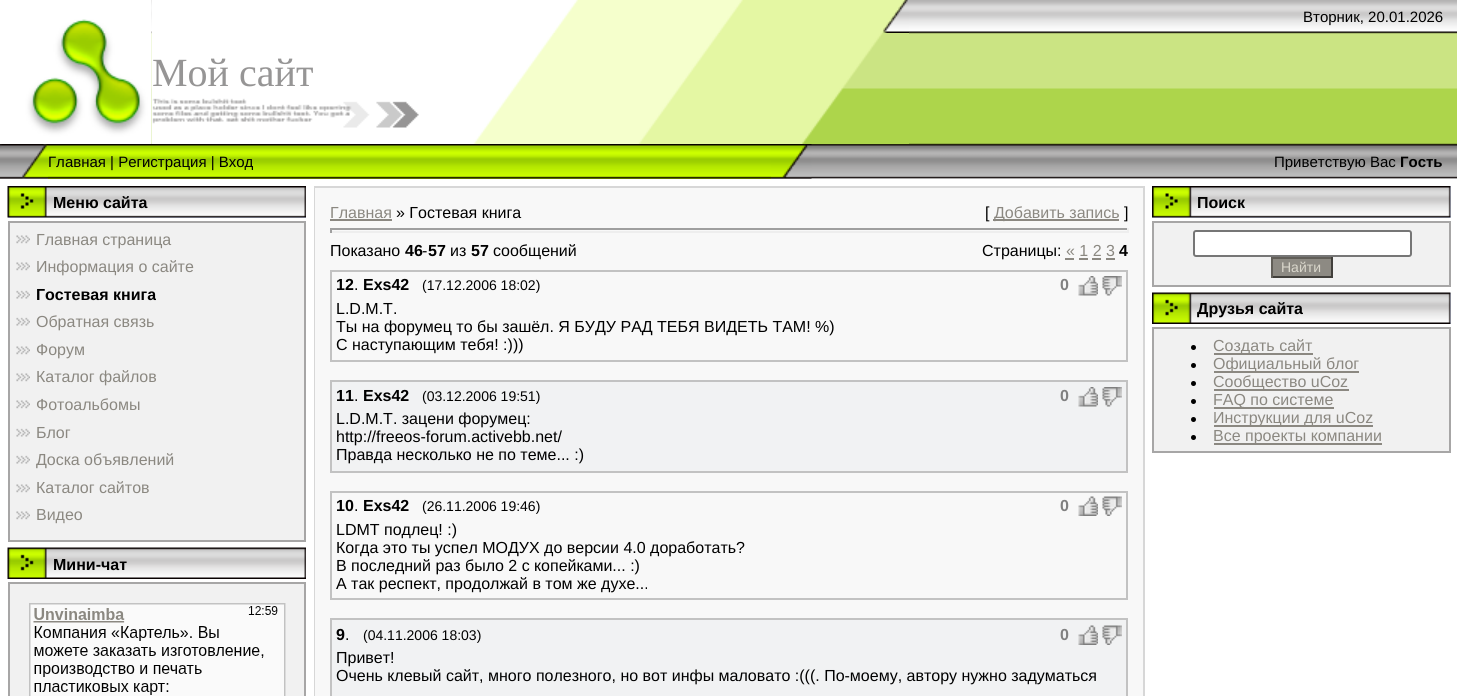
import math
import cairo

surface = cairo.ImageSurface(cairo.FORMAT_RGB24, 1457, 696)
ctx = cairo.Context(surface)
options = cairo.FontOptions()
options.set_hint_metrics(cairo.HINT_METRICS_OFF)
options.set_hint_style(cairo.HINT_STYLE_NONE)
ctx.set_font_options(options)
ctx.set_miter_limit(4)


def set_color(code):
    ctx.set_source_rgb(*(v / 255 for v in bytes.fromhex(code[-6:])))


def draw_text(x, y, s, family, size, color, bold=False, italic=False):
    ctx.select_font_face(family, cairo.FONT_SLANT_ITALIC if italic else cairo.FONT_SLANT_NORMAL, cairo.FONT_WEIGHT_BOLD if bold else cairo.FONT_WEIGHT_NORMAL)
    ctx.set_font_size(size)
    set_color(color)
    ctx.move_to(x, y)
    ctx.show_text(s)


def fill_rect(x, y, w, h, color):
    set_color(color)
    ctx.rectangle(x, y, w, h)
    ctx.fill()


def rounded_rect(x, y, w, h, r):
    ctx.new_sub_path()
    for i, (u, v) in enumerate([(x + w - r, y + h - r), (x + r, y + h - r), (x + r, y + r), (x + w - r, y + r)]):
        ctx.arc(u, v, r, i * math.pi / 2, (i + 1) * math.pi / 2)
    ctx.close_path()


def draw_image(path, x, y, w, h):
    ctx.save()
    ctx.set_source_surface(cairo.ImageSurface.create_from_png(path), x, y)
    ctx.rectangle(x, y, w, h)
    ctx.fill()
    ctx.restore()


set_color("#ffffff")
ctx.paint()
draw_image("assets/img1.png", 0, 0, 1457, 179)
draw_image("assets/img2.png", 0, 0, 152, 33)
draw_image("assets/img3.png", 151, 0, 758, 33)
draw_text(1303, 22, "Вторник, 20.01.2026", "Liberation Sans", 15, "#000000")
draw_image("assets/img5.png", 151, 33, 758, 111)
draw_image("assets/img4.png", 0, 33, 152, 111)
draw_text(152, 86, "Мой сайт", "Liberation Serif", 40, "#969595")
draw_image("assets/img6.png", 0, 144, 48, 35)
fill_rect(48, 178, 723, 1, "#b0e300")
draw_image("assets/img7.png", 48, 144, 723, 35)
draw_text(48, 167, "Главная | Регистрация | Вход", "Liberation Sans", 15, "#000000")
draw_image("assets/img8.png", 771, 144, 41, 35)
draw_text(1274, 167, "Приветствую Вас", "Liberation Sans", 15, "#000000")
draw_text(1400, 167, "Гость", "Liberation Sans", 15, "#000000", bold=True)
fill_rect(8, 217, 298, 1, "#d4dff7")
draw_image("assets/img9.png", 7, 186, 299, 32)
draw_text(53, 208, "Меню сайта", "Liberation Sans", 16, "#000000", bold=True)
set_color("#f1f1f1")
ctx.rectangle(9, 222, 296, 319)
ctx.fill_preserve()
set_color("#a7a6a6")
ctx.stroke()
draw_image("assets/img10.png", 16, 235, 14, 9)
draw_text(36, 245, "Главная страница", "Liberation Sans", 16, "#8b8881")
draw_image("assets/img10.png", 16, 262, 14, 9)
draw_text(36, 272, "Информация о сайте", "Liberation Sans", 16, "#8b8881")
draw_image("assets/img11.png", 16, 290, 14, 9)
draw_text(36, 300, "Гостевая книга", "Liberation Sans", 16, "#000000", bold=True)
draw_image("assets/img11.png", 16, 317, 14, 9)
draw_text(36, 327, "Обратная связь", "Liberation Sans", 16, "#8b8881")
draw_image("assets/img10.png", 16, 346, 14, 9)
draw_text(36, 355, "Форум", "Liberation Sans", 16, "#8b8881")
draw_image("assets/img10.png", 16, 373, 14, 9)
draw_text(36, 382, "Каталог файлов", "Liberation Sans", 16, "#8b8881")
draw_image("assets/img10.png", 16, 400, 14, 9)
draw_text(36, 410, "Фотоальбомы", "Liberation Sans", 16, "#8b8881")
draw_image("assets/img11.png", 16, 428, 14, 9)
draw_text(36, 438, "Блог", "Liberation Sans", 16, "#8b8881")
draw_image("assets/img11.png", 16, 455, 14, 9)
draw_text(36, 465, "Доска объявлений", "Liberation Sans", 16, "#8b8881")
draw_image("assets/img10.png", 16, 484, 14, 9)
draw_text(36, 493, "Каталог сайтов", "Liberation Sans", 16, "#8b8881")
draw_image("assets/img10.png", 16, 511, 14, 9)
draw_text(36, 520, "Видео", "Liberation Sans", 16, "#8b8881")
draw_image("assets/img12.png", 7, 547, 299, 32)
draw_text(53, 570, "Мини-чат", "Liberation Sans", 16, "#000000", bold=True)
set_color("#f1f1f1")
ctx.rectangle(9, 583, 296, 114)
ctx.fill_preserve()
set_color("#a7a6a6")
ctx.stroke()
draw_image("assets/img13.png", 29, 603, 257, 93)
ctx.rectangle(315, 187, 829, 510)
set_color("#d7d7d7")
ctx.stroke()
fill_rect(315, 188, 828, 508, "#f8f8f8")
draw_text(330, 218, "Главная", "Liberation Sans", 16, "#8b8881")
fill_rect(330, 219, 62, 2, "#8b8881")
draw_text(396, 218, "» Гостевая книга", "Liberation Sans", 16, "#000000")
draw_text(985, 218, "[", "Liberation Sans", 16, "#000000")
fill_rect(993, 219, 126, 2, "#8b8881")
draw_text(994, 218, "Добавить запись", "Liberation Sans", 16, "#8b8881")
draw_text(1124, 218, "]", "Liberation Sans", 16, "#000000")
fill_rect(330, 228, 798, 2, "#9f9f9f")
fill_rect(1127, 228, 2, 5, "#eeeeee")
fill_rect(330, 231, 798, 2, "#eeeeee")
fill_rect(330, 228, 2, 5, "#9f9f9f")
draw_text(330, 256, "Показано", "Liberation Sans", 16, "#000000")
draw_text(405, 256, "46", "Liberation Sans", 16, "#000000", bold=True)
draw_text(422, 256, "-", "Liberation Sans", 16, "#000000")
draw_text(428, 256, "57", "Liberation Sans", 16, "#000000", bold=True)
draw_text(450, 256, "из", "Liberation Sans", 16, "#000000")
draw_text(471, 256, "57", "Liberation Sans", 16, "#000000", bold=True)
draw_text(493, 256, "сообщений", "Liberation Sans", 16, "#000000")
draw_text(982, 256, "Страницы:", "Liberation Sans", 16, "#000000")
draw_text(1066, 256, "« 1 2 3", "Liberation Sans", 16, "#8b8881")
fill_rect(1065, 258, 9, 2, "#8b8881")
draw_text(1119, 256, "4", "Liberation Sans", 16, "#000000", bold=True)
fill_rect(1079, 258, 9, 2, "#8b8881")
fill_rect(1092, 258, 9, 2, "#8b8881")
fill_rect(1106, 258, 9, 2, "#8b8881")
ctx.rectangle(331, 271, 796, 90)
set_color("#c2c2c2")
ctx.stroke()
draw_text(336, 290, "12", "Liberation Sans", 16, "#000000", bold=True)
draw_text(354, 290, ".", "Liberation Sans", 16, "#000000")
draw_text(363, 290, "Exs42", "Liberation Sans", 16, "#000000", bold=True)
draw_text(422, 290, "(17.12.2006 18:02)", "Liberation Sans", 14, "#000000")
draw_text(1060, 290, "0", "Liberation Sans", 16, "#808080", bold=True)
draw_image("assets/img14.png", 1078, 276, 20, 20)
draw_image("assets/img15.png", 1102, 276, 20, 20)
draw_text(336, 314, "L.D.M.T.", "Liberation Sans", 16, "#000000")
draw_text(336, 332, "Ты на форумец то бы зашёл. Я БУДУ РАД ТЕБЯ ВИДЕТЬ ТАМ! %)", "Liberation Sans", 16, "#000000")
draw_text(336, 350, "С наступающим тебя! :)))", "Liberation Sans", 16, "#000000")
set_color("#f1f2f3")
ctx.rectangle(331, 381, 796, 91)
ctx.fill_preserve()
set_color("#c2c2c2")
ctx.stroke()
draw_text(336, 401, "11", "Liberation Sans", 16, "#000000", bold=True)
draw_text(354, 401, ".", "Liberation Sans", 16, "#000000")
draw_text(363, 401, "Exs42", "Liberation Sans", 16, "#000000", bold=True)
draw_text(422, 401, "(03.12.2006 19:51)", "Liberation Sans", 14, "#000000")
draw_text(1060, 401, "0", "Liberation Sans", 16, "#808080", bold=True)
draw_image("assets/img16.png", 1078, 387, 20, 20)
draw_image("assets/img17.png", 1102, 387, 20, 20)
draw_text(336, 424, "L.D.M.T. зацени форумец:", "Liberation Sans", 16, "#000000")
draw_text(336, 442, "http://freeos-forum.activebb.net/", "Liberation Sans", 16, "#000000")
draw_text(336, 460, "Правда несколько не по теме... :)", "Liberation Sans", 16, "#000000")
ctx.rectangle(331, 492, 796, 107)
set_color("#c2c2c2")
ctx.stroke()
draw_text(336, 511, "10", "Liberation Sans", 16, "#000000", bold=True)
draw_text(354, 511, ".", "Liberation Sans", 16, "#000000")
draw_text(363, 511, "Exs42", "Liberation Sans", 16, "#000000", bold=True)
draw_text(422, 511, "(26.11.2006 19:46)", "Liberation Sans", 14, "#000000")
draw_text(1060, 511, "0", "Liberation Sans", 16, "#808080", bold=True)
draw_image("assets/img18.png", 1078, 496, 20, 20)
draw_image("assets/img19.png", 1102, 496, 20, 20)
draw_text(336, 535, "LDMT подлец! :)", "Liberation Sans", 16, "#000000")
draw_text(336, 553, "Когда это ты успел МОДУХ до версии 4.0 доработать?", "Liberation Sans", 16, "#000000")
draw_text(336, 571, "В последний раз было 2 с копейками... :)", "Liberation Sans", 16, "#000000")
draw_text(336, 589, "А так респект, продолжай в том же духе...", "Liberation Sans", 16, "#000000")
set_color("#f1f2f3")
ctx.rectangle(331, 619, 796, 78)
ctx.fill_preserve()
set_color("#c2c2c2")
ctx.stroke()
draw_text(336, 640, "9", "Liberation Sans", 16, "#000000", bold=True)
draw_text(345, 640, ".", "Liberation Sans", 16, "#000000")
draw_text(363, 640, "(04.11.2006 18:03)", "Liberation Sans", 14, "#000000")
draw_text(1060, 640, "0", "Liberation Sans", 16, "#808080", bold=True)
draw_image("assets/img20.png", 1078, 625, 20, 20)
draw_image("assets/img21.png", 1102, 625, 20, 20)
draw_text(336, 663, "Привет!", "Liberation Sans", 16, "#000000")
draw_text(336, 681, "Очень клевый сайт, много полезного, но вот инфы маловато :(((. По-моему, автору нужно задуматься", "Liberation Sans", 16, "#000000")
fill_rect(1152, 186, 299, 32, "#d4dff7")
draw_image("assets/img22.png", 1152, 186, 299, 32)
draw_text(1197, 208, "Поиск", "Liberation Sans", 16, "#000000", bold=True)
set_color("#f1f1f1")
ctx.rectangle(1153, 222, 297, 64)
ctx.fill_preserve()
set_color("#a7a6a6")
ctx.stroke()
set_color("#ffffff")
rounded_rect(1194, 231, 217, 25, 2)
ctx.fill_preserve()
set_color("#767676")
ctx.stroke()
fill_rect(1273, 259, 58, 17, "#8d8a83")
fill_rect(1271, 257, 61, 2, "#615e58")
fill_rect(1331, 257, 2, 21, "#413f3b")
fill_rect(1271, 276, 61, 2, "#413f3b")
fill_rect(1271, 257, 2, 21, "#615e58")
draw_text(1281, 272, "Найти", "Liberation Sans", 14, "#dad7cc")
fill_rect(1450, 293, 1, 31, "#d4dff7")
draw_image("assets/img23.png", 1152, 292, 299, 32)
draw_text(1197, 314, "Друзья сайта", "Liberation Sans", 16, "#000000", bold=True)
set_color("#f1f1f1")
ctx.rectangle(1153, 328, 297, 124)
ctx.fill_preserve()
set_color("#a7a6a6")
ctx.stroke()
set_color("#000000")
ctx.arc(1193.5, 347.5, 2.5, 0, 2 * math.pi)
ctx.fill()
fill_rect(1214, 353, 99, 2, "#8b8881")
draw_text(1213, 351, "Создать сайт", "Liberation Sans", 16, "#8b8881")
set_color("#000000")
ctx.new_path()
ctx.arc(1193.5, 365.5, 2.5, 0, 2 * math.pi)
ctx.fill()
fill_rect(1214, 371, 145, 2, "#8b8881")
draw_text(1213, 369, "Официальный блог", "Liberation Sans", 16, "#8b8881")
set_color("#000000")
ctx.new_path()
ctx.arc(1193.5, 383.5, 2.5, 0, 2 * math.pi)
ctx.fill()
fill_rect(1214, 389, 135, 2, "#8b8881")
draw_text(1213, 387, "Сообщество uCoz", "Liberation Sans", 16, "#8b8881")
set_color("#000000")
ctx.new_path()
ctx.arc(1193.5, 401.5, 2.5, 0, 2 * math.pi)
ctx.fill()
fill_rect(1214, 407, 120, 2, "#8b8881")
draw_text(1213, 405, "FAQ по системе", "Liberation Sans", 16, "#8b8881")
set_color("#000000")
ctx.new_path()
ctx.arc(1193.5, 419.5, 2.5, 0, 2 * math.pi)
ctx.fill()
fill_rect(1214, 425, 159, 2, "#8b8881")
draw_text(1213, 423, "Инструкции для uCoz", "Liberation Sans", 16, "#8b8881")
set_color("#000000")
ctx.new_path()
ctx.arc(1193.5, 437.5, 2.5, 0, 2 * math.pi)
ctx.fill()
fill_rect(1214, 443, 168, 2, "#8b8881")
draw_text(1213, 441, "Все проекты компании", "Liberation Sans", 16, "#8b8881")
surface.write_to_png("output.png")
